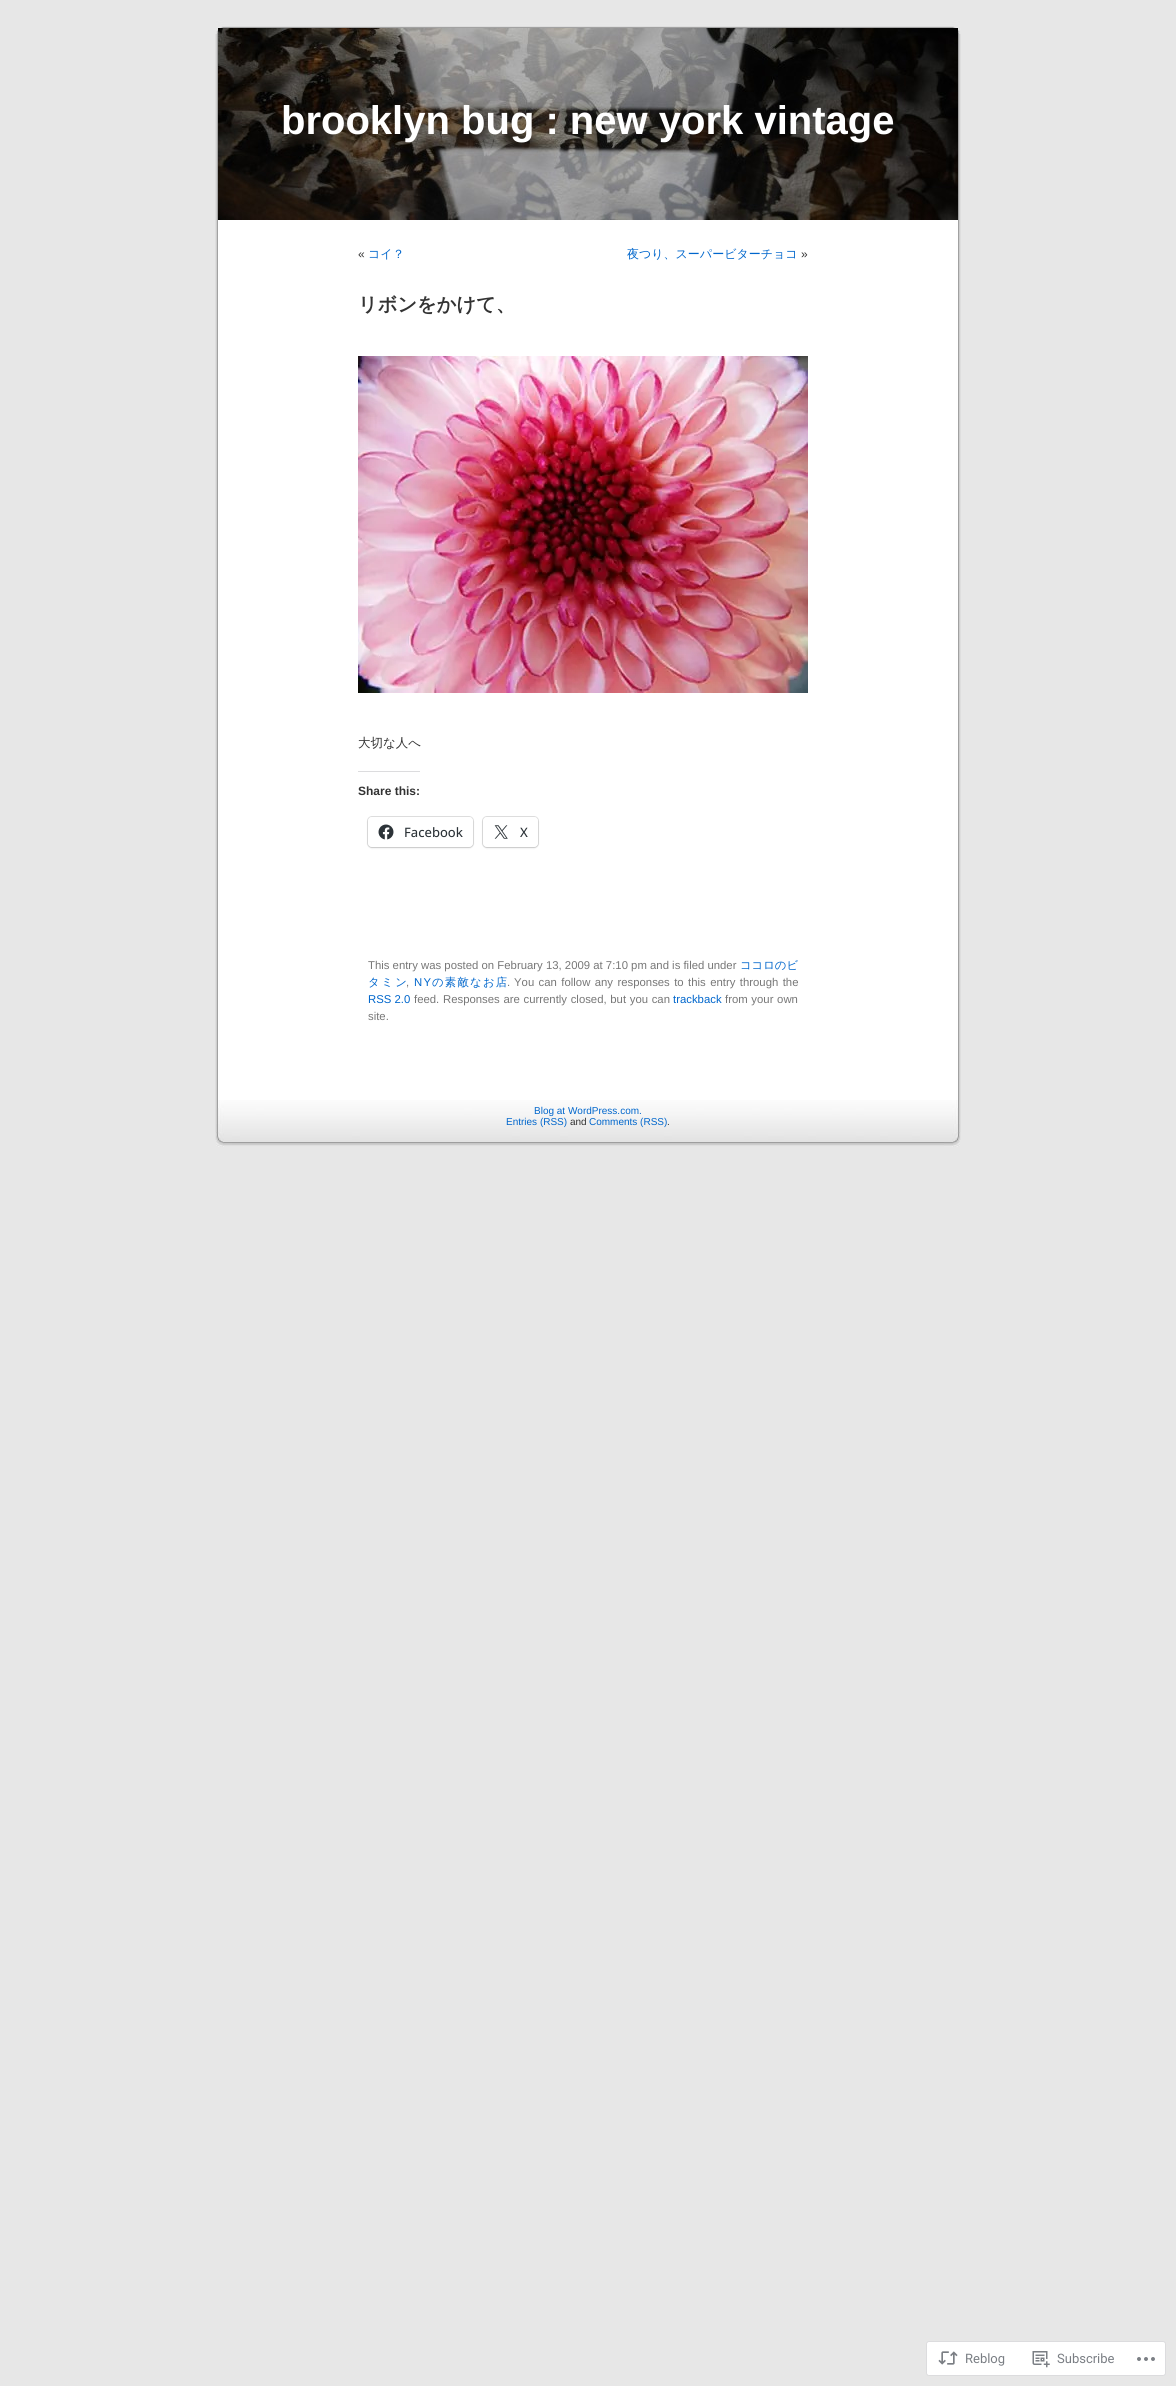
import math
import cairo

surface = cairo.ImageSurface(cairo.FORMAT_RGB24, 1176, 2386)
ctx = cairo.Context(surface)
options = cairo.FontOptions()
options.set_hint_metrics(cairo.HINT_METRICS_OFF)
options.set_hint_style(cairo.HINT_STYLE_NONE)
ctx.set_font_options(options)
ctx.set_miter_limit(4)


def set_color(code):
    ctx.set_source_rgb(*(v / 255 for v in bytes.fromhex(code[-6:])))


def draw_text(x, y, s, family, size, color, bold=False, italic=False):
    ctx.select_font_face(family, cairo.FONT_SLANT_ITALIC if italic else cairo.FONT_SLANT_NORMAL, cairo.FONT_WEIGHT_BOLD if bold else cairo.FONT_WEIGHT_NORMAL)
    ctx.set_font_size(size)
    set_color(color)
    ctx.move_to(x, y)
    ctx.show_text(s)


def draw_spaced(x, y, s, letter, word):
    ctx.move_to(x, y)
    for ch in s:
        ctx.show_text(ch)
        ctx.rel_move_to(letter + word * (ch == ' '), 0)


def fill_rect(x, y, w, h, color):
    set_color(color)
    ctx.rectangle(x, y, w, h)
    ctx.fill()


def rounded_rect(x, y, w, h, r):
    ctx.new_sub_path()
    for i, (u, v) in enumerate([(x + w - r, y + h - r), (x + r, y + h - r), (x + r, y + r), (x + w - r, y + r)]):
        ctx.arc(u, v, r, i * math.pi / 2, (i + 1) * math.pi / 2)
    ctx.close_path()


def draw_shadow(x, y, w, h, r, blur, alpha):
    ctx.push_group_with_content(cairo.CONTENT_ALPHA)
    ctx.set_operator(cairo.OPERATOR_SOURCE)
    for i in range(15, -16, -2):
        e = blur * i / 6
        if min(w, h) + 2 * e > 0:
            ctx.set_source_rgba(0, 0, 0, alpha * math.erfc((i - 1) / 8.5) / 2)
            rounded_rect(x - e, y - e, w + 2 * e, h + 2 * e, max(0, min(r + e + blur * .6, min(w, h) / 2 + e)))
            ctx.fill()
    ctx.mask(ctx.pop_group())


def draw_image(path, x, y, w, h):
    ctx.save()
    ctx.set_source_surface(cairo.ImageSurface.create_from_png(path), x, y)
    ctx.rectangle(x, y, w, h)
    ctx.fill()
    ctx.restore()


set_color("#e7e7e7")
ctx.paint()
draw_image("assets/img1.png", 215, 220, 746, 880)
draw_image("assets/img2.png", 215, 20, 746, 200)
draw_image("assets/img3.png", 218, 28, 740, 192)
draw_text(281, 134, "brooklyn bug : new york vintage", "Liberation Sans", 40, "#ffffff", bold=True)
draw_text(358, 258, "«", "Liberation Sans", 12, "#333333")
draw_text(368, 258, "コイ？", "WenQuanYi Zen Hei Medium", 12, "#0066cc")
draw_text(627, 258, "夜つり、スーパービターチョコ", "WenQuanYi Zen Hei Medium", 12, "#0066cc")
draw_text(801, 258, "»", "Liberation Sans", 12, "#333333")
draw_text(358, 311, "リボンをかけて、", "WenQuanYi Zen Hei", 19.25, "#333333", bold=True)
draw_image("assets/img4.png", 358, 356, 450, 337)
draw_text(358, 747, "大切な人へ", "WenQuanYi Zen Hei Medium", 12.5, "#333333")
fill_rect(358, 771, 62, 1, "#dcdcde")
draw_text(358, 795, "Share this:", "Liberation Sans", 12, "#333333", bold=True)
rounded_rect(367.5, 816.5, 106, 31, 4.5)
set_color("#e0e0e0")
ctx.set_line_width(1)
ctx.stroke()
set_color("#000000")
draw_shadow(368, 818, 105, 30, 4, 1, 0.12)
set_color("#ffffff")
rounded_rect(368, 817, 105, 30, 4)
ctx.fill()
draw_image("assets/img5.png", 378, 824, 16, 16)
draw_text(404, 837, "Facebook", "Open Sans Medium", 13, "#2c3338")
rounded_rect(482.5, 816.5, 56, 31, 4.5)
set_color("#e0e0e0")
ctx.stroke()
set_color("#000000")
draw_shadow(483, 818, 55, 30, 4, 1, 0.12)
set_color("#ffffff")
rounded_rect(483, 817, 55, 30, 4)
ctx.fill()
draw_image("assets/img6.png", 494, 825, 14, 14)
draw_text(520, 837, "X", "Open Sans Medium", 13, "#2c3338")
draw_text(368, 969, "This entry was posted on February 13, 2009 at 7:10 pm and is filed under", "Liberation Sans", 11.35, "#777777")
draw_text(740, 969, "ココロのビ", "WenQuanYi Zen Hei Medium", 11.35, "#0066cc")
draw_spaced(368, 986, "タミン", 2, 0)
draw_text(406, 986, ",", "Liberation Sans", 11.35, "#777777")
set_color("#0066cc")
draw_spaced(414, 986, "NY", 1.25, 0)
ctx.select_font_face("WenQuanYi Zen Hei Medium")
draw_spaced(432, 986, "の素敵なお店", 1.25, 0)
draw_text(507, 986, ".", "Liberation Sans", 11.35, "#777777")
draw_spaced(514, 986, "You can follow any responses to this entry through the", 0, 1.25)
draw_text(368, 1003, "RSS 2.0", "Liberation Sans", 11.35, "#0066cc")
draw_text(414, 1003, "feed.", "Liberation Sans", 11.35, "#777777")
draw_spaced(443, 1003, "Responses are currently closed, but you can", 0, 0.5)
draw_text(673, 1003, "trackback", "Liberation Sans", 11.35, "#0066cc")
set_color("#777777")
draw_spaced(725, 1003, "from your own", 0, 0.5)
draw_text(368, 1020, "site.", "Liberation Sans", 11.35, "#777777")
draw_image("assets/img7.png", 215, 1100, 746, 47)
draw_text(534, 1114, "Blog at WordPress.com.", "Liberation Sans", 10, "#0066cc")
draw_text(506, 1125, "Entries (RSS)", "Liberation Sans", 10, "#0066cc")
draw_text(570, 1125, "and", "Liberation Sans", 10, "#333333")
draw_text(589, 1125, "Comments (RSS)", "Liberation Sans", 10, "#0066cc")
draw_text(667, 1125, ".", "Liberation Sans", 10, "#333333")
set_color("#ffffff")
rounded_rect(926.5, 2341.5, 239, 34, 2.5)
ctx.fill_preserve()
set_color("#dcdcde")
ctx.stroke()
draw_image("assets/img8.png", 938, 2351, 20, 14)
draw_text(965, 2363, "Reblog", "Roboto", 13, "#7a7e84")
draw_image("assets/img9.png", 1032, 2351, 18, 17)
draw_text(1057, 2363, "Subscribe", "Roboto", 13, "#7a7e84")
draw_image("assets/img10.png", 1137, 2357, 18, 4)
surface.write_to_png("output.png")
